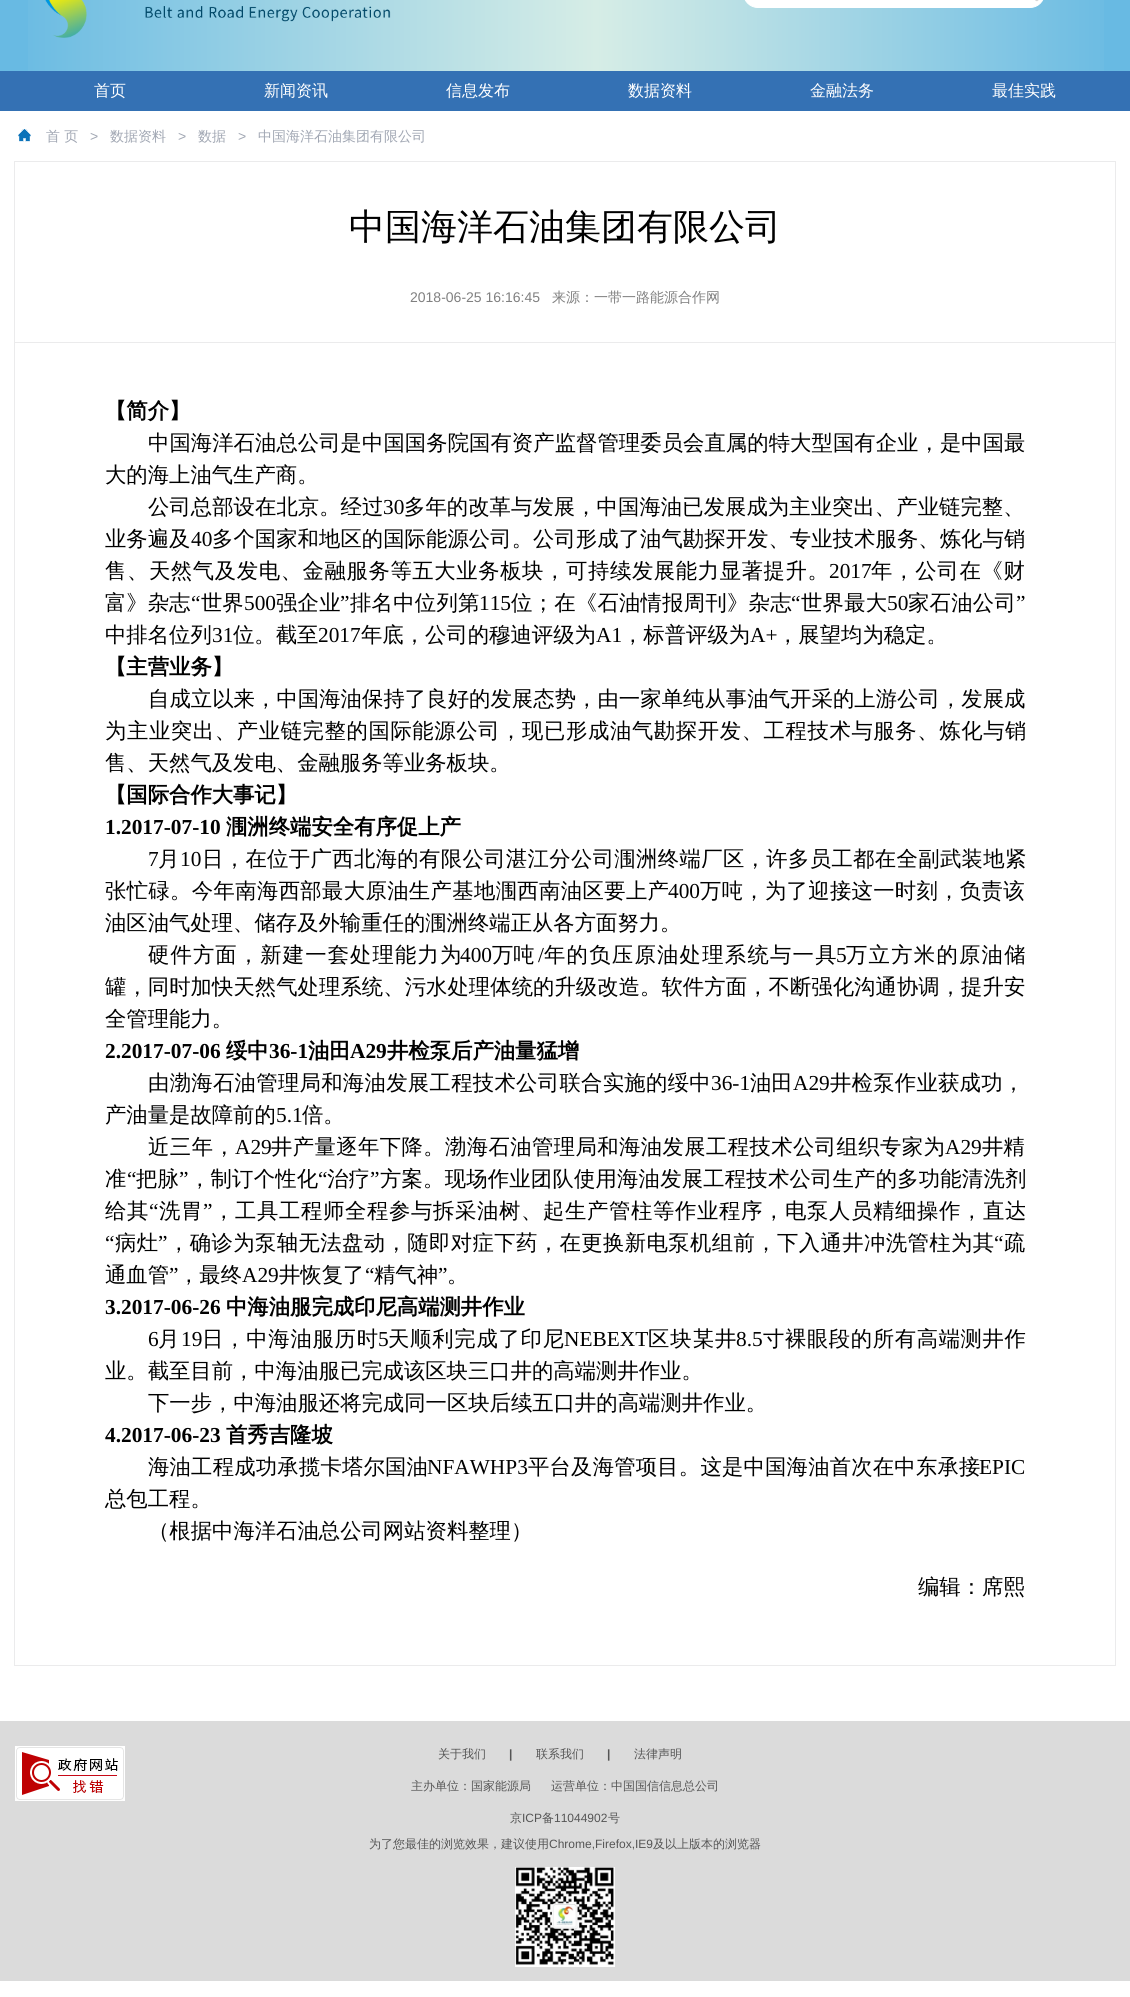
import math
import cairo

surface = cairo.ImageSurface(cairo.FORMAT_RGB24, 1130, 1997)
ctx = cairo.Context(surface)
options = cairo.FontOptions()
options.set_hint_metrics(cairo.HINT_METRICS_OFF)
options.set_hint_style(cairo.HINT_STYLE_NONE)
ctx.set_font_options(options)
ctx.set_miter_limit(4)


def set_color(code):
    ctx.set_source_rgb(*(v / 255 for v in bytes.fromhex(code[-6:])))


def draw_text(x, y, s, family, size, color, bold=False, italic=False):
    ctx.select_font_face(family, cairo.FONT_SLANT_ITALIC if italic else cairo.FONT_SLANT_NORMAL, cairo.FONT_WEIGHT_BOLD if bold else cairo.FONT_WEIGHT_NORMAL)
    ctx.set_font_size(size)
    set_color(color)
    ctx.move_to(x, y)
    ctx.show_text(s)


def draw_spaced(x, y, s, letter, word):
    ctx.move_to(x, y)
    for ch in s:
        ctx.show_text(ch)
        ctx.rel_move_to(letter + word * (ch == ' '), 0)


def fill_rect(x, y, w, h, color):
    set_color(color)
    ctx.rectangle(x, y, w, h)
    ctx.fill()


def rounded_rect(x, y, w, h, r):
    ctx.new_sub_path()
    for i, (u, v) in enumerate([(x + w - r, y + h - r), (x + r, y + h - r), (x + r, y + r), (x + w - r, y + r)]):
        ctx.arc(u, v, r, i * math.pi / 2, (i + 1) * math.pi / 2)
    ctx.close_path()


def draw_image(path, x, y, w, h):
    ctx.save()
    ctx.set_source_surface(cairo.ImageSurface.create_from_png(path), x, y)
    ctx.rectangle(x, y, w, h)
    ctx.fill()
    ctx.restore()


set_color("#ffffff")
ctx.paint()
fill_rect(0, 0, 1130, 71, "#68bae3")
draw_image("assets/img1.png", 28, 0, 1076, 71)
set_color("#ffffff")
rounded_rect(743.5, -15.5, 301, 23, 14.5)
ctx.fill_preserve()
ctx.set_line_width(1)
ctx.stroke()
draw_image("assets/img2.png", 1035, 0, 4, 2)
draw_image("assets/img3.png", 45, 0, 346, 38)
fill_rect(0, 71, 1130, 40, "#3471b4")
draw_text(94, 96, "首页", "WenQuanYi Zen Hei Medium", 16, "#ffffff")
draw_text(264, 96, "新闻资讯", "WenQuanYi Zen Hei Medium", 16, "#ffffff")
draw_text(446, 96, "信息发布", "WenQuanYi Zen Hei Medium", 16, "#ffffff")
draw_text(628, 96, "数据资料", "WenQuanYi Zen Hei Medium", 16, "#ffffff")
draw_text(810, 96, "金融法务", "WenQuanYi Zen Hei Medium", 16, "#ffffff")
draw_text(992, 96, "最佳实践", "WenQuanYi Zen Hei Medium", 16, "#ffffff")
draw_image("assets/img4.png", 18, 129, 13, 13)
draw_text(46, 141, "首 页", "WenQuanYi Zen Hei Medium", 14, "#a1a7b3")
draw_text(90, 141, ">", "Liberation Sans", 14, "#a1a7b3")
draw_text(110, 141, "数据资料", "WenQuanYi Zen Hei Medium", 14, "#a1a7b3")
draw_text(178, 141, ">", "Liberation Sans", 14, "#a1a7b3")
draw_text(198, 141, "数据", "WenQuanYi Zen Hei Medium", 14, "#a1a7b3")
draw_text(238, 141, ">", "Liberation Sans", 14, "#a1a7b3")
draw_text(258, 141, "中国海洋石油集团有限公司", "WenQuanYi Zen Hei Medium", 14, "#a1a7b3")
ctx.rectangle(14.5, 161.5, 1101, 1504)
set_color("#ebebec")
ctx.stroke()
fill_rect(15, 342, 1100, 1, "#ebebec")
draw_text(349, 239, "中国海洋石油集团有限公司", "WenQuanYi Zen Hei Medium", 36, "#000000")
draw_text(410, 302, "2018-06-25 16:16:45", "Liberation Sans", 14, "#808080")
draw_text(552, 302, "来源：一带一路能源合作网", "WenQuanYi Zen Hei Medium", 14, "#808080")
draw_text(105, 418, "【简介】", "WenQuanYi Zen Hei", 21.35, "#000000", bold=True)
ctx.select_font_face("WenQuanYi Zen Hei Medium")
draw_spaced(148, 450, "中国海洋石油总公司是中国国务院国有资产监督管理委员会直属的特大型国有企业，是中国最", 0.05, 0)
draw_text(105, 482, "大的海上油气生产商。", "WenQuanYi Zen Hei Medium", 21.35, "#000000")
draw_spaced(148, 514, "公司总部设在北京。经过", 0.05, 0)
draw_text(383, 514, "30", "Liberation Serif", 21.35, "#000000")
ctx.select_font_face("WenQuanYi Zen Hei Medium")
draw_spaced(404, 514, "多年的改革与发展，中国海油已发展成为主业突出、产业链完整、", 0.05, 0)
draw_text(105, 546, "业务遍及", "WenQuanYi Zen Hei Medium", 21.35, "#000000")
draw_text(191, 546, "40", "Liberation Serif", 21.35, "#000000")
ctx.select_font_face("WenQuanYi Zen Hei Medium")
draw_spaced(212, 546, "多个国家和地区的国际能源公司。公司形成了油气勘探开发、专业技术服务、炼化与销", 0.05, 0)
draw_spaced(105, 578, "售、天然气及发电、金融服务等五大业务板块，可持续发展能力显著提升。", 0.6, 0)
draw_text(829, 578, "2017", "Liberation Serif", 21.35, "#000000")
ctx.select_font_face("WenQuanYi Zen Hei Medium")
draw_spaced(871, 578, "年，公司在《财", 0.75, 0)
draw_text(105, 610, "富》杂志", "WenQuanYi Zen Hei Medium", 21.35, "#000000")
draw_text(191, 610, "“", "Liberation Serif", 21.35, "#000000")
draw_text(201, 610, "世界", "WenQuanYi Zen Hei Medium", 21.35, "#000000")
draw_text(244, 610, "500", "Liberation Serif", 21.35, "#000000")
ctx.select_font_face("WenQuanYi Zen Hei Medium")
draw_spaced(276, 610, "强企业", 0.25, 0)
ctx.select_font_face("Liberation Serif")
draw_spaced(340, 610, "”", 0.25, 0)
ctx.select_font_face("WenQuanYi Zen Hei Medium")
draw_spaced(350, 610, "排名中位列第", 0.25, 0)
draw_text(479, 610, "115", "Liberation Serif", 21.35, "#000000")
ctx.select_font_face("WenQuanYi Zen Hei Medium")
draw_spaced(511, 610, "位；在《石油情报周刊》杂志", 0.25, 0)
ctx.select_font_face("Liberation Serif")
draw_spaced(791, 610, "“", 0.25, 0)
ctx.select_font_face("WenQuanYi Zen Hei Medium")
draw_spaced(801, 610, "世界最大", 0.25, 0)
draw_text(887, 610, "50", "Liberation Serif", 21.35, "#000000")
ctx.select_font_face("WenQuanYi Zen Hei Medium")
draw_spaced(908, 610, "家石油公司", 0.25, 0)
ctx.select_font_face("Liberation Serif")
draw_spaced(1016, 610, "”", 0.25, 0)
draw_text(105, 642, "中排名位列", "WenQuanYi Zen Hei Medium", 21.35, "#000000")
draw_text(212, 642, "31", "Liberation Serif", 21.35, "#000000")
draw_text(233, 642, "位。截至", "WenQuanYi Zen Hei Medium", 21.35, "#000000")
draw_text(318, 642, "2017", "Liberation Serif", 21.35, "#000000")
draw_text(361, 642, "年底，公司的穆迪评级为", "WenQuanYi Zen Hei Medium", 21.35, "#000000")
draw_text(596, 642, "A1", "Liberation Serif", 21.35, "#000000")
draw_text(622, 642, "，标普评级为", "WenQuanYi Zen Hei Medium", 21.35, "#000000")
draw_text(750, 642, "A+", "Liberation Serif", 21.35, "#000000")
draw_text(777, 642, "，展望均为稳定。", "WenQuanYi Zen Hei Medium", 21.35, "#000000")
draw_text(105, 674, "【主营业务】", "WenQuanYi Zen Hei", 21.35, "#000000", bold=True)
ctx.select_font_face("WenQuanYi Zen Hei Medium")
draw_spaced(148, 706, "自成立以来，中国海油保持了良好的发展态势，由一家单纯从事油气开采的上游公司，发展成", 0.05, 0)
draw_spaced(105, 738, "为主业突出、产业链完整的国际能源公司，现已形成油气勘探开发、工程技术与服务、炼化与销", 0.6, 0)
draw_text(105, 770, "售、天然气及发电、金融服务等业务板块。", "WenQuanYi Zen Hei Medium", 21.35, "#000000")
draw_text(105, 802, "【国际合作大事记】", "WenQuanYi Zen Hei", 21.35, "#000000", bold=True)
draw_text(105, 834, "1.2017-07-10", "Liberation Serif", 21.35, "#000000", bold=True)
draw_text(226, 834, "涠洲终端安全有序促上产", "WenQuanYi Zen Hei", 21.35, "#000000", bold=True)
draw_text(148, 866, "7", "Liberation Serif", 21.35, "#000000")
draw_text(158, 866, "月", "WenQuanYi Zen Hei Medium", 21.35, "#000000")
draw_text(180, 866, "10", "Liberation Serif", 21.35, "#000000")
ctx.select_font_face("WenQuanYi Zen Hei Medium")
draw_spaced(202, 866, "日，在位于广西北海的有限公司湛江分公司涠洲终端厂区，许多员工都在全副武装地紧", 0.35, 0)
draw_spaced(105, 898, "张忙碌。今年南海西部最大原油生产基地涠西南油区要上产", 0.35, 0)
draw_text(668, 898, "400", "Liberation Serif", 21.35, "#000000")
ctx.select_font_face("WenQuanYi Zen Hei Medium")
draw_spaced(700, 898, "万吨，为了迎接这一时刻，负责该", 0.3, 0)
draw_text(105, 930, "油区油气处理、储存及外输重任的涠洲终端正从各方面努力。", "WenQuanYi Zen Hei Medium", 21.35, "#000000")
draw_spaced(148, 962, "硬件方面，新建一套处理能力为", 1.1, 0)
draw_text(460, 962, "400", "Liberation Serif", 21.35, "#000000")
draw_text(492, 962, "万吨", "WenQuanYi Zen Hei Medium", 21.35, "#000000")
draw_text(538, 962, "/", "Liberation Serif", 21.35, "#000000")
ctx.select_font_face("WenQuanYi Zen Hei Medium")
draw_spaced(544, 962, "年的负压原油处理系统与一具", 1.25, 0)
draw_text(836, 962, "5", "Liberation Serif", 21.35, "#000000")
ctx.select_font_face("WenQuanYi Zen Hei Medium")
draw_spaced(846, 962, "万立方米的原油储", 1.25, 0)
draw_spaced(105, 994, "罐，同时加快天然气处理系统、污水处理体统的升级改造。软件方面，不断强化沟通协调，提升安", 0.05, 0)
draw_text(105, 1026, "全管理能力。", "WenQuanYi Zen Hei Medium", 21.35, "#000000")
draw_text(105, 1058, "2.2017-07-06", "Liberation Serif", 21.35, "#000000", bold=True)
draw_text(226, 1058, "绥中", "WenQuanYi Zen Hei", 21.35, "#000000", bold=True)
draw_text(269, 1058, "36-1", "Liberation Serif", 21.35, "#000000", bold=True)
draw_text(308, 1058, "油田", "WenQuanYi Zen Hei", 21.35, "#000000", bold=True)
draw_text(350, 1058, "A29", "Liberation Serif", 21.35, "#000000", bold=True)
draw_text(387, 1058, "井检泵后产油量猛增", "WenQuanYi Zen Hei", 21.35, "#000000", bold=True)
ctx.select_font_face("WenQuanYi Zen Hei Medium")
draw_spaced(148, 1090, "由渤海石油管理局和海油发展工程技术公司联合实施的绥中", 0.3, 0)
draw_text(711, 1090, "36-1", "Liberation Serif", 21.35, "#000000")
draw_text(750, 1090, "油田", "WenQuanYi Zen Hei Medium", 21.35, "#000000")
draw_text(793, 1090, "A29", "Liberation Serif", 21.35, "#000000")
ctx.select_font_face("WenQuanYi Zen Hei Medium")
draw_spaced(830, 1090, "井检泵作业获成功，", 0.25, 0)
draw_text(105, 1122, "产油量是故障前的", "WenQuanYi Zen Hei Medium", 21.35, "#000000")
draw_text(276, 1122, "5.1", "Liberation Serif", 21.35, "#000000")
draw_text(302, 1122, "倍。", "WenQuanYi Zen Hei Medium", 21.35, "#000000")
draw_spaced(148, 1154, "近三年，", 0.5, 0)
draw_text(235, 1154, "A29", "Liberation Serif", 21.35, "#000000")
ctx.select_font_face("WenQuanYi Zen Hei Medium")
draw_spaced(271, 1154, "井产量逐年下降。渤海石油管理局和海油发展工程技术公司组织专家为", 0.4, 0)
draw_text(945, 1154, "A29", "Liberation Serif", 21.35, "#000000")
draw_text(982, 1154, "井精", "WenQuanYi Zen Hei Medium", 21.35, "#000000")
draw_spaced(105, 1186, "准", 0.2, 0)
ctx.select_font_face("Liberation Serif")
draw_spaced(127, 1186, "“", 0.2, 0)
ctx.select_font_face("WenQuanYi Zen Hei Medium")
draw_spaced(136, 1186, "把脉", 0.2, 0)
ctx.select_font_face("Liberation Serif")
draw_spaced(179, 1186, "”", 0.2, 0)
ctx.select_font_face("WenQuanYi Zen Hei Medium")
draw_spaced(189, 1186, "，制订个性化", 0.2, 0)
ctx.select_font_face("Liberation Serif")
draw_spaced(318, 1186, "“", 0.2, 0)
ctx.select_font_face("WenQuanYi Zen Hei Medium")
draw_spaced(327, 1186, "治疗", 0.2, 0)
ctx.select_font_face("Liberation Serif")
draw_spaced(370, 1186, "”", 0.2, 0)
ctx.select_font_face("WenQuanYi Zen Hei Medium")
draw_spaced(380, 1186, "方案。现场作业团队使用海油发展工程技术公司生产的多功能清洗剂", 0.2, 0)
draw_spaced(105, 1218, "给其", 0.65, 0)
ctx.select_font_face("Liberation Serif")
draw_spaced(149, 1218, "“", 0.65, 0)
ctx.select_font_face("WenQuanYi Zen Hei Medium")
draw_spaced(159, 1218, "洗胃", 0.65, 0)
ctx.select_font_face("Liberation Serif")
draw_spaced(203, 1218, "”", 0.65, 0)
ctx.select_font_face("WenQuanYi Zen Hei Medium")
draw_spaced(213, 1218, "，工具工程师全程参与拆采油树、起生产管柱等作业程序，电泵人员精细操作，直达", 0.65, 0)
ctx.select_font_face("Liberation Serif")
draw_spaced(105, 1250, "“", 0.4, 0)
ctx.select_font_face("WenQuanYi Zen Hei Medium")
draw_spaced(115, 1250, "病灶", 0.4, 0)
ctx.select_font_face("Liberation Serif")
draw_spaced(158, 1250, "”", 0.4, 0)
ctx.select_font_face("WenQuanYi Zen Hei Medium")
draw_spaced(168, 1250, "，确诊为泵轴无法盘动，随即对症下药，在更换新电泵机组前，下入通井冲洗管柱为其", 0.4, 0)
ctx.select_font_face("Liberation Serif")
draw_spaced(994, 1250, "“", 0.4, 0)
ctx.select_font_face("WenQuanYi Zen Hei Medium")
draw_spaced(1004, 1250, "疏", 0.4, 0)
draw_text(105, 1282, "通血管", "WenQuanYi Zen Hei Medium", 21.35, "#000000")
draw_text(169, 1282, "”", "Liberation Serif", 21.35, "#000000")
draw_text(178, 1282, "，最终", "WenQuanYi Zen Hei Medium", 21.35, "#000000")
draw_text(242, 1282, "A29", "Liberation Serif", 21.35, "#000000")
draw_text(279, 1282, "井恢复了", "WenQuanYi Zen Hei Medium", 21.35, "#000000")
draw_text(365, 1282, "“", "Liberation Serif", 21.35, "#000000")
draw_text(374, 1282, "精气神", "WenQuanYi Zen Hei Medium", 21.35, "#000000")
draw_text(438, 1282, "”", "Liberation Serif", 21.35, "#000000")
draw_text(447, 1282, "。", "WenQuanYi Zen Hei Medium", 21.35, "#000000")
draw_text(105, 1314, "3.2017-06-26", "Liberation Serif", 21.35, "#000000", bold=True)
draw_text(226, 1314, "中海油服完成印尼高端测井作业", "WenQuanYi Zen Hei", 21.35, "#000000", bold=True)
draw_text(148, 1346, "6", "Liberation Serif", 21.35, "#000000")
draw_text(158, 1346, "月", "WenQuanYi Zen Hei Medium", 21.35, "#000000")
draw_text(181, 1346, "19", "Liberation Serif", 21.35, "#000000")
ctx.select_font_face("WenQuanYi Zen Hei Medium")
draw_spaced(202, 1346, "日，中海油服历时", 0.75, 0)
draw_text(378, 1346, "5", "Liberation Serif", 21.35, "#000000")
ctx.select_font_face("WenQuanYi Zen Hei Medium")
draw_spaced(388, 1346, "天顺利完成了印尼", 0.75, 0)
draw_text(564, 1346, "NEBEXT", "Liberation Serif", 21.35, "#000000")
ctx.select_font_face("WenQuanYi Zen Hei Medium")
draw_spaced(648, 1346, "区块某井", 1, 0)
draw_text(736, 1346, "8.5", "Liberation Serif", 21.35, "#000000")
ctx.select_font_face("WenQuanYi Zen Hei Medium")
draw_spaced(763, 1346, "寸裸眼段的所有高端测井作", 0.6, 0)
draw_text(105, 1378, "业。截至目前，中海油服已完成该区块三口井的高端测井作业。", "WenQuanYi Zen Hei Medium", 21.35, "#000000")
draw_text(148, 1410, "下一步，中海油服还将完成同一区块后续五口井的高端测井作业。", "WenQuanYi Zen Hei Medium", 21.35, "#000000")
draw_text(105, 1442, "4.2017-06-23", "Liberation Serif", 21.35, "#000000", bold=True)
draw_text(226, 1442, "首秀吉隆坡", "WenQuanYi Zen Hei", 21.35, "#000000", bold=True)
ctx.select_font_face("WenQuanYi Zen Hei Medium")
draw_spaced(148, 1474, "海油工程成功承揽卡塔尔国油", 0.2, 0)
draw_text(427, 1474, "NFAWHP3", "Liberation Serif", 21.35, "#000000")
ctx.select_font_face("WenQuanYi Zen Hei Medium")
draw_spaced(528, 1474, "平台及海管项目。这是中国海油首次在中东承接", 0.2, 0)
draw_text(979, 1474, "EPIC", "Liberation Serif", 21.35, "#000000")
draw_text(105, 1506, "总包工程。", "WenQuanYi Zen Hei Medium", 21.35, "#000000")
draw_text(148, 1538, "（根据中海洋石油总公司网站资料整理）", "WenQuanYi Zen Hei Medium", 21.35, "#000000")
draw_text(918, 1594, "编辑：席熙", "WenQuanYi Zen Hei Medium", 21.35, "#000000")
fill_rect(0, 1721, 1130, 260, "#dbdbdb")
draw_image("assets/img5.png", 15, 1746, 110, 55)
draw_text(438, 1758, "关于我们", "WenQuanYi Zen Hei Medium", 12, "#555555")
draw_text(509, 1758, "|", "Liberation Sans", 12, "#555555", bold=True)
draw_text(536, 1758, "联系我们", "WenQuanYi Zen Hei Medium", 12, "#555555")
draw_text(607, 1758, "|", "Liberation Sans", 12, "#555555", bold=True)
draw_text(634, 1758, "法律声明", "WenQuanYi Zen Hei Medium", 12, "#555555")
draw_text(411, 1790, "主办单位：国家能源局", "WenQuanYi Zen Hei Medium", 12, "#555555")
draw_text(551, 1790, "运营单位：中国国信信息总公司", "WenQuanYi Zen Hei Medium", 12, "#555555")
draw_text(510, 1822, "京", "WenQuanYi Zen Hei Medium", 12, "#555555")
draw_text(522, 1822, "ICP", "Liberation Sans", 12, "#555555")
draw_text(542, 1822, "备", "WenQuanYi Zen Hei Medium", 12, "#555555")
draw_text(554, 1822, "11044902", "Liberation Sans", 12, "#555555")
draw_text(608, 1822, "号", "WenQuanYi Zen Hei Medium", 12, "#555555")
draw_text(369, 1848, "为了您最佳的浏览效果，建议使用", "WenQuanYi Zen Hei Medium", 12, "#555555")
draw_text(549, 1848, "Chrome,Firefox,IE9", "Liberation Sans", 12, "#555555")
draw_text(653, 1848, "及以上版本的浏览器", "WenQuanYi Zen Hei Medium", 12, "#555555")
draw_image("assets/img6.png", 515, 1867, 100, 100)
surface.write_to_png("output.png")
